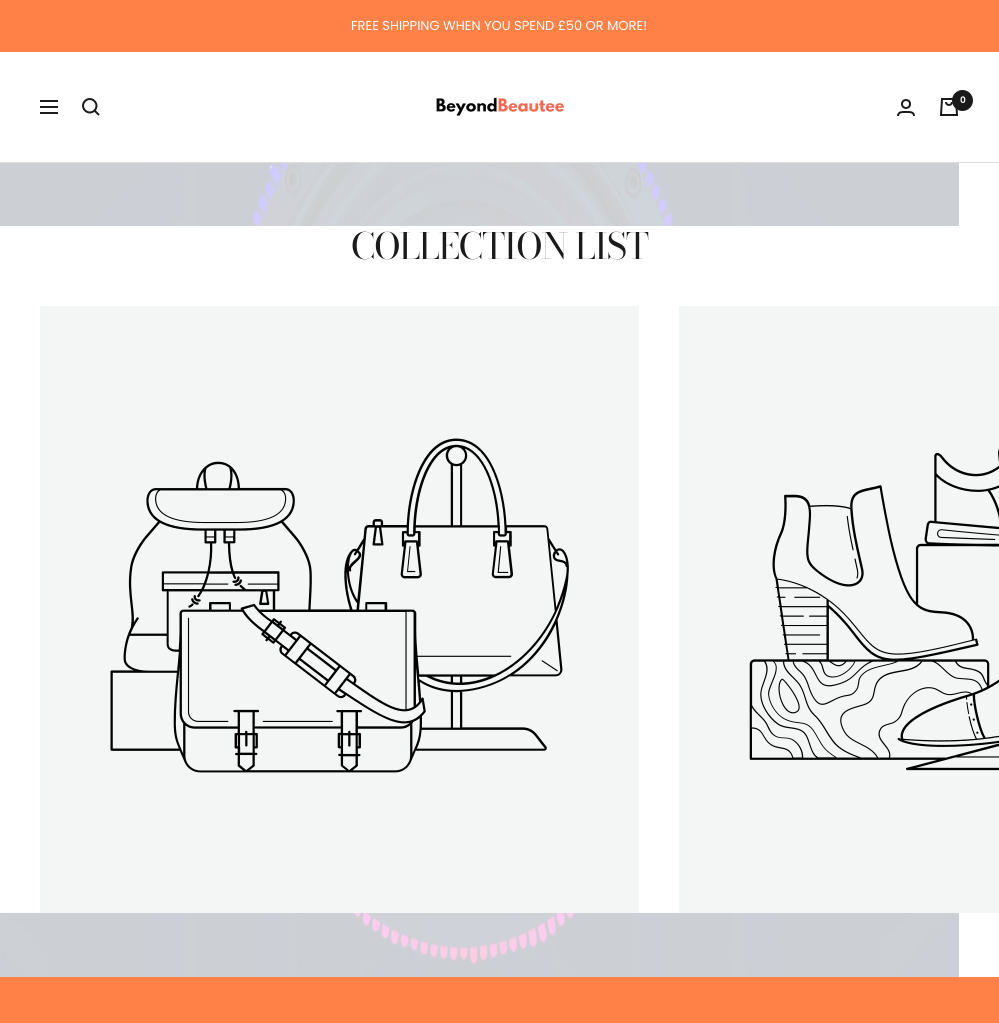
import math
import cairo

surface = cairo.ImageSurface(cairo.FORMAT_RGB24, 999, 1023)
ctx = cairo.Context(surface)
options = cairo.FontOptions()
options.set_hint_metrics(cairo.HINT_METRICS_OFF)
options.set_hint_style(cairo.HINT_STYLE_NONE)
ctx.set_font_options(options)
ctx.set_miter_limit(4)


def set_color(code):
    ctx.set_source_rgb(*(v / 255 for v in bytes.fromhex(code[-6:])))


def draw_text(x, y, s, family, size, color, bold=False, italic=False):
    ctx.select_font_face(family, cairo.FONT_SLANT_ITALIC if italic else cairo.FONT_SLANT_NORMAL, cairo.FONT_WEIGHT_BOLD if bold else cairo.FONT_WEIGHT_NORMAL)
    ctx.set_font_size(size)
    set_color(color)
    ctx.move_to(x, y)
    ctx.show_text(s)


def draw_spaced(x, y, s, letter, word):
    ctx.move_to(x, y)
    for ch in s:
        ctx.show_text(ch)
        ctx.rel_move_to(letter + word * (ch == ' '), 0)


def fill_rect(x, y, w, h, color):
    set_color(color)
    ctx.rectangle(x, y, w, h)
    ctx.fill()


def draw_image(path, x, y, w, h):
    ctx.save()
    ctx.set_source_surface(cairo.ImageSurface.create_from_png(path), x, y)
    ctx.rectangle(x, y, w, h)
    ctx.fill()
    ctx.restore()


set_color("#ffffff")
ctx.paint()
fill_rect(0, 0, 999, 52, "#ff8147")
draw_text(351, 30, "FREE SHIPPING WHEN YOU SPEND £50 OR MORE!", "Poppins", 13, "#ffffff")
fill_rect(0, 162, 999, 1, "#dddddd")
ctx.new_path()
ctx.move_to(40, 101)
ctx.line_to(58, 101)
ctx.move_to(40, 113)
ctx.line_to(58, 113)
ctx.close_path()
ctx.move_to(40, 107)
ctx.line_to(58, 107)
ctx.close_path()
ctx.move_to(94.5, 110.5)
ctx.curve_to(100.5, 104, 91.5, 95, 85, 101)
ctx.curve_to(79, 107.5, 88, 116.5, 94.5, 110.5)
ctx.close_path()
ctx.move_to(94.5, 110.5)
ctx.line_to(99, 115)
set_color("#1a1a1a")
ctx.stroke()
draw_image("assets/img1.png", 436, 97, 128, 19)
ctx.arc(906, 104, 4, 0, 2 * math.pi)
ctx.stroke()
ctx.new_path()
ctx.move_to(898, 116)
ctx.curve_to(898, 111.5, 903, 112, 906, 112)
ctx.curve_to(909, 112, 914, 111.5, 914, 116)
ctx.stroke()
draw_image("assets/img2.png", 939, 98, 20, 18)
ctx.arc(962.5, 100.5, 10.5, 0, 2 * math.pi)
ctx.fill()
draw_text(960, 103, "0", "Poppins SemiBold", 9, "#ffffff")
draw_image("assets/img3.png", 0, 163, 959, 814)
fill_rect(0, 226, 959, 687, "#ffffff")
ctx.select_font_face("Bodoni Moda")
ctx.set_font_size(36)
set_color("#1a1a1a")
draw_spaced(351, 259, "COLLECTION LIST", -1, 0)
fill_rect(40, 306, 599, 607, "#f4f5f5")
draw_image("assets/img4.png", 110, 438, 459, 335)
fill_rect(679, 306, 320, 607, "#f4f5f5")
draw_image("assets/img5.png", 749, 448, 250, 323)
fill_rect(0, 977, 999, 46, "#ff8147")
surface.write_to_png("output.png")
